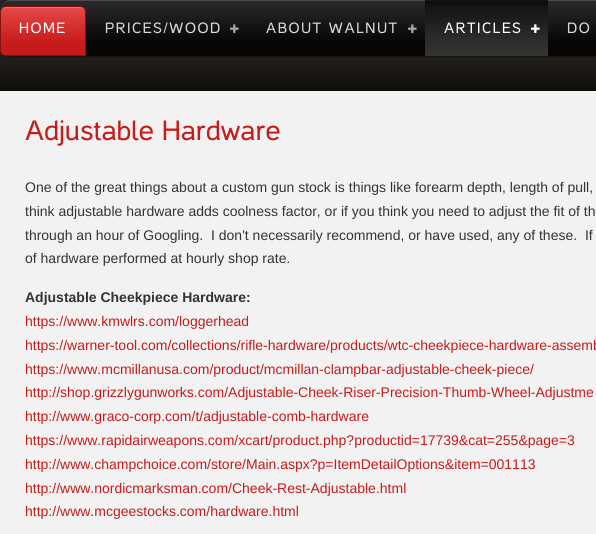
import math
import cairo

surface = cairo.ImageSurface(cairo.FORMAT_RGB24, 596, 534)
ctx = cairo.Context(surface)
options = cairo.FontOptions()
options.set_hint_metrics(cairo.HINT_METRICS_OFF)
options.set_hint_style(cairo.HINT_STYLE_NONE)
ctx.set_font_options(options)
ctx.set_miter_limit(4)


def set_color(code):
    ctx.set_source_rgb(*(v / 255 for v in bytes.fromhex(code[-6:])))


def draw_text(x, y, s, family, size, color, bold=False, italic=False):
    ctx.select_font_face(family, cairo.FONT_SLANT_ITALIC if italic else cairo.FONT_SLANT_NORMAL, cairo.FONT_WEIGHT_BOLD if bold else cairo.FONT_WEIGHT_NORMAL)
    ctx.set_font_size(size)
    set_color(color)
    ctx.move_to(x, y)
    ctx.show_text(s)


def draw_spaced(x, y, s, letter, word):
    ctx.move_to(x, y)
    for ch in s:
        ctx.show_text(ch)
        ctx.rel_move_to(letter + word * (ch == ' '), 0)


def fill_rect(x, y, w, h, color):
    set_color(color)
    ctx.rectangle(x, y, w, h)
    ctx.fill()


def rounded_rect(x, y, w, h, r):
    ctx.new_sub_path()
    for i, (u, v) in enumerate([(x + w - r, y + h - r), (x + r, y + h - r), (x + r, y + r), (x + w - r, y + r)]):
        ctx.arc(u, v, r, i * math.pi / 2, (i + 1) * math.pi / 2)
    ctx.close_path()


def draw_shadow(x, y, w, h, r, blur, alpha):
    ctx.push_group_with_content(cairo.CONTENT_ALPHA)
    ctx.set_operator(cairo.OPERATOR_SOURCE)
    for i in range(15, -16, -2):
        e = blur * i / 6
        if min(w, h) + 2 * e > 0:
            ctx.set_source_rgba(0, 0, 0, alpha * math.erfc((i - 1) / 8.5) / 2)
            rounded_rect(x - e, y - e, w + 2 * e, h + 2 * e, max(0, min(r + e + blur * .6, min(w, h) / 2 + e)))
            ctx.fill()
    ctx.mask(ctx.pop_group())


def draw_image(path, x, y, w, h):
    ctx.save()
    ctx.set_source_surface(cairo.ImageSurface.create_from_png(path), x, y)
    ctx.rectangle(x, y, w, h)
    ctx.fill()
    ctx.restore()


set_color("#ffffff")
ctx.paint()
gradient = cairo.LinearGradient(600, 0, 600, 91)
gradient.add_color_stop_rgba(0, 0.173, 0.141, 0.137, 1)
gradient.add_color_stop_rgba(0.35, 0.173, 0.141, 0.137, 1)
gradient.add_color_stop_rgba(1, 0.098, 0.098, 0.075, 1)
ctx.set_source(gradient)
ctx.rectangle(0, 0, 596, 91)
ctx.fill()
ctx.save()
ctx.set_fill_rule(cairo.FILL_RULE_EVEN_ODD)
ctx.new_path()
ctx.move_to(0, 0)
ctx.line_to(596, 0)
ctx.line_to(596, 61)
ctx.line_to(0, 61)
ctx.close_path()
ctx.move_to(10, 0)
ctx.line_to(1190, 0)
ctx.curve_to(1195.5, 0, 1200, 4.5, 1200, 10)
ctx.line_to(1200, 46)
ctx.curve_to(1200, 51.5, 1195.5, 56, 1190, 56)
ctx.line_to(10, 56)
ctx.curve_to(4.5, 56, 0, 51.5, 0, 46)
ctx.line_to(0, 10)
ctx.curve_to(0, 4.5, 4.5, 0, 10, 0)
ctx.close_path()
ctx.clip()
set_color("#000000")
draw_shadow(0, 1, 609, 56, 10, 1, 0.5)
ctx.restore()
set_color("#110e0d")
ctx.new_path()
ctx.move_to(10, -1)
ctx.curve_to(4, -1, 0, 4, 0, 10)
ctx.curve_to(0, 4, 4, 0, 10, 0)
ctx.line_to(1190, 0)
ctx.curve_to(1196, 0, 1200, 4, 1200, 10)
ctx.curve_to(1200, 4, 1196, -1, 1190, -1)
ctx.close_path()
ctx.fill()
set_color("#000000")
draw_shadow(-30, 91, 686, 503, 0, 20, 0.9)
ctx.set_source_rgba(0, 0, 0, 0.42)
rounded_rect(0, 0, 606, 56, 10)
ctx.fill()
gradient = cairo.LinearGradient(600, 0, 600, 56)
gradient.add_color_stop_rgba(0, 0.2, 0.2, 0.2, 0.7)
gradient.add_color_stop_rgba(0.75, 0, 0, 0, 0.7)
gradient.add_color_stop_rgba(1, 0, 0, 0, 0.7)
ctx.set_source(gradient)
rounded_rect(0, 0, 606, 56, 10)
ctx.fill()
ctx.set_source_rgba(0.882, 0.882, 0.882, 0.2)
ctx.new_path()
ctx.move_to(10, 1)
ctx.line_to(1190, 1)
ctx.curve_to(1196, 1, 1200, 5, 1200, 11)
ctx.curve_to(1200, 5, 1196, 0, 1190, 0)
ctx.line_to(10, 0)
ctx.curve_to(4, 0, 0, 5, 0, 11)
ctx.curve_to(0, 5, 4, 1, 10, 1)
ctx.close_path()
ctx.fill()
ctx.save()
ctx.new_path()
ctx.move_to(6, 6)
ctx.line_to(80, 6)
ctx.curve_to(83.5, 6, 86, 8.5, 86, 12)
ctx.line_to(86, 56)
ctx.line_to(6, 56)
ctx.curve_to(2.5, 56, 0, 53.5, 0, 50)
ctx.line_to(0, 12)
ctx.curve_to(0, 8.5, 2.5, 6, 6, 6)
ctx.close_path()
ctx.clip()
gradient = cairo.LinearGradient(43, 7, 43, 55)
gradient.add_color_stop_rgba(0, 0.902, 0.282, 0.282, 1)
gradient.add_color_stop_rgba(0.75, 0.78, 0.106, 0.106, 1)
gradient.add_color_stop_rgba(1, 0.78, 0.106, 0.106, 1)
ctx.set_source(gradient)
ctx.rectangle(1, 7, 84, 48)
ctx.fill()
ctx.restore()
set_color("#e47575")
ctx.new_path()
ctx.move_to(6, 8)
ctx.line_to(80, 8)
ctx.curve_to(83, 8, 85, 10, 85, 13)
ctx.curve_to(85, 4, 73, 7, 68, 7)
ctx.line_to(18, 7)
ctx.curve_to(13, 7, 1, 4, 1, 13)
ctx.curve_to(1, 10, 3, 8, 6, 8)
ctx.close_path()
ctx.fill()
ctx.new_path()
ctx.move_to(6, 6.5)
ctx.line_to(80, 6.5)
ctx.curve_to(83, 6.5, 85.5, 9, 85.5, 12)
ctx.line_to(85.5, 55.5)
ctx.line_to(6, 55.5)
ctx.curve_to(3, 55.5, 0.5, 53, 0.5, 50)
ctx.line_to(0.5, 12)
ctx.curve_to(0.5, 9, 3, 6.5, 6, 6.5)
ctx.close_path()
set_color("#841212")
ctx.set_line_width(1)
ctx.stroke()
ctx.select_font_face("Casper")
ctx.set_font_size(15)
set_color("#ffffff")
draw_spaced(19, 33, "HOME", 1.5, 0)
set_color("#d8d8d8")
draw_spaced(105, 33, "PRICES/WOOD", 1.5, 0)
draw_image("assets/img1.png", 230, 24, 9, 9)
draw_spaced(266, 33, "ABOUT WALNUT", 1.5, 0)
draw_image("assets/img1.png", 408, 24, 9, 9)
ctx.set_source_rgba(0.212, 0.212, 0.212, 0.42)
ctx.rectangle(425, 0, 123, 56)
ctx.fill()
gradient = cairo.LinearGradient(487, 0, 487, 56)
gradient.add_color_stop_rgba(0, 0, 0, 0, 0.7)
gradient.add_color_stop_rgba(0.7, 0.2, 0.2, 0.2, 0.7)
gradient.add_color_stop_rgba(1, 0.251, 0.251, 0.251, 0.7)
ctx.set_source(gradient)
ctx.rectangle(425, 0, 123, 56)
ctx.fill()
set_color("#ffffff")
draw_spaced(444, 33, "ARTICLES", 1.5, 0)
draw_image("assets/img2.png", 531, 24, 9, 9)
set_color("#d8d8d8")
draw_spaced(567, 33, "DO", 1.5, 0)
fill_rect(0, 91, 596, 443, "#f2f2f2")
draw_text(25, 140, "Adjustable Hardware", "Casper", 28, "#c71b1b")
draw_text(25, 192, "One of the great things about a custom gun stock is things like forearm depth, length of pull,", "Liberation Sans", 14, "#333333")
draw_text(25, 216, "think adjustable hardware adds coolness factor, or if you think you need to adjust the fit of th", "Liberation Sans", 14, "#333333")
draw_text(25, 240, "through an hour of Googling.  I don't necessarily recommend, or have used, any of these.  If", "Liberation Sans", 14, "#333333")
draw_text(25, 263, "of hardware performed at hourly shop rate.", "Liberation Sans", 14, "#333333")
draw_text(25, 302, "Adjustable Cheekpiece Hardware:", "Liberation Sans", 14, "#333333", bold=True)
draw_text(25, 326, "https://www.kmwlrs.com/loggerhead", "Liberation Sans", 14, "#c71b1b")
draw_text(25, 350, "https://warner-tool.com/collections/rifle-hardware/products/wtc-cheekpiece-hardware-assemb", "Liberation Sans", 14, "#c71b1b")
draw_text(25, 374, "https://www.mcmillanusa.com/product/mcmillan-clampbar-adjustable-cheek-piece/", "Liberation Sans", 14, "#c71b1b")
draw_text(25, 397, "http://shop.grizzlygunworks.com/Adjustable-Cheek-Riser-Precision-Thumb-Wheel-Adjustme", "Liberation Sans", 14, "#c71b1b")
draw_text(25, 421, "http://www.graco-corp.com/t/adjustable-comb-hardware", "Liberation Sans", 14, "#c71b1b")
draw_text(25, 445, "https://www.rapidairweapons.com/xcart/product.php?productid=17739&cat=255&page=3", "Liberation Sans", 14, "#c71b1b")
draw_text(25, 469, "http://www.champchoice.com/store/Main.aspx?p=ItemDetailOptions&item=001113", "Liberation Sans", 14, "#c71b1b")
draw_text(25, 493, "http://www.nordicmarksman.com/Cheek-Rest-Adjustable.html", "Liberation Sans", 14, "#c71b1b")
draw_text(25, 516, "http://www.mcgeestocks.com/hardware.html", "Liberation Sans", 14, "#c71b1b")
surface.write_to_png("output.png")
